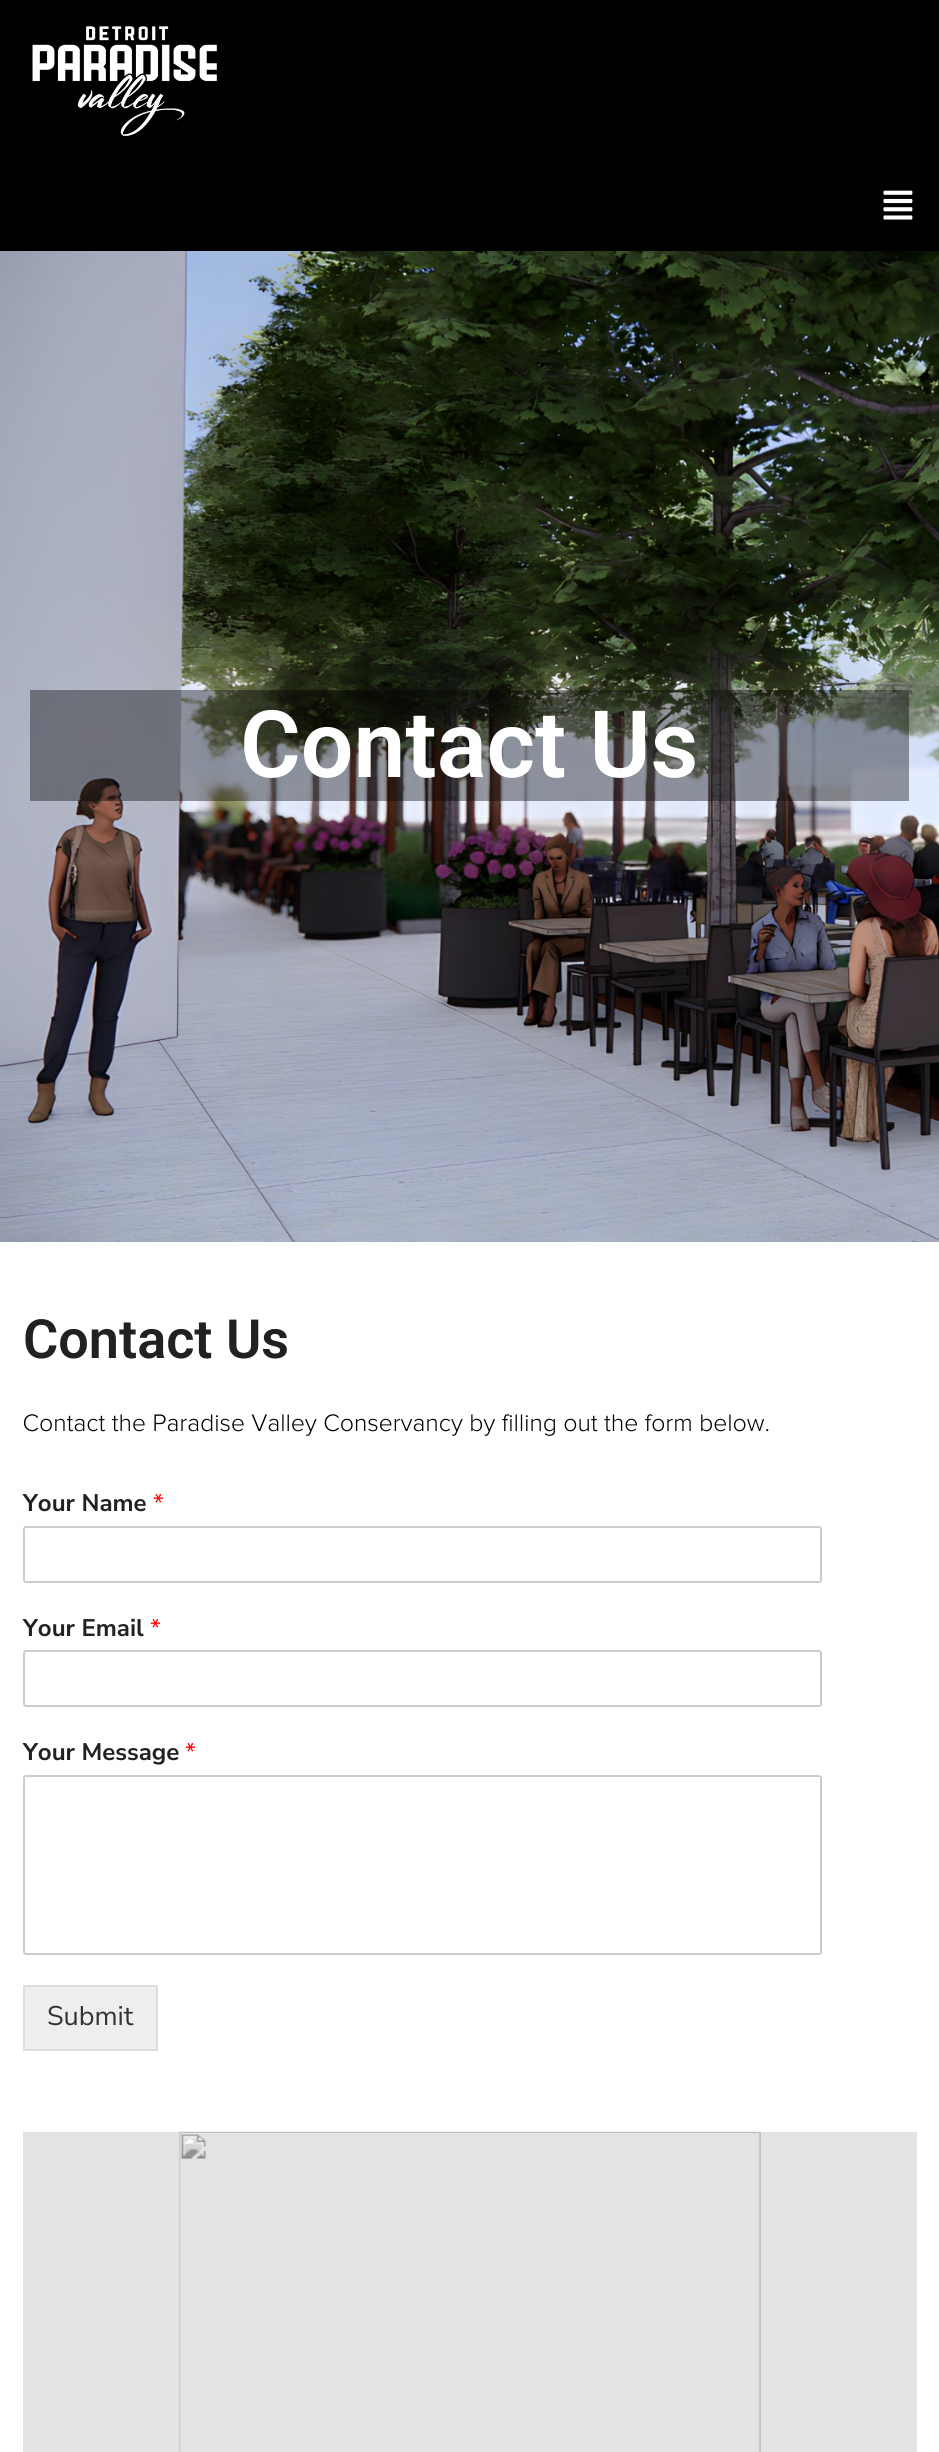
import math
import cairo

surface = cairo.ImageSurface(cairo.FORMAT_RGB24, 939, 2452)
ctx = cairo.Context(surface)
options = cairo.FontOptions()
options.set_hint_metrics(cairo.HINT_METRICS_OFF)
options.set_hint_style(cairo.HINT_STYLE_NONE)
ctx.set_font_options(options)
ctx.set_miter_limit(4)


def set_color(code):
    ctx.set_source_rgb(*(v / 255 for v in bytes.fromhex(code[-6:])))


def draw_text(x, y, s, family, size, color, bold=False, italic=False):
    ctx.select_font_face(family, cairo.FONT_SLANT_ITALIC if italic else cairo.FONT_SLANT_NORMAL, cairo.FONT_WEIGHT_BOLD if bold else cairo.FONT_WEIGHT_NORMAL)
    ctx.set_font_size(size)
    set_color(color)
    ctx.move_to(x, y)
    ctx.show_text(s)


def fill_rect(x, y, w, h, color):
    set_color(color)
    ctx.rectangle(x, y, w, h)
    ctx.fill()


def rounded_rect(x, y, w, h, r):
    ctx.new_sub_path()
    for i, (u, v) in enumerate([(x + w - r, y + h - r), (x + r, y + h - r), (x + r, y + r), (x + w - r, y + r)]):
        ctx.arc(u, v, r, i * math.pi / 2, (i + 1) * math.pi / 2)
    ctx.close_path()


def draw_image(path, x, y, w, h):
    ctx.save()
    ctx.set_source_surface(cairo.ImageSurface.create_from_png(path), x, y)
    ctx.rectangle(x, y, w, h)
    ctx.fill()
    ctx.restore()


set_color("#ffffff")
ctx.paint()
fill_rect(0, 0, 939, 251, "#000000")
draw_image("assets/img1.png", 32, 26, 185, 110)
draw_image("assets/img2.png", 883, 190, 30, 30)
draw_image("assets/img3.png", 0, 251, 939, 991)
ctx.set_source_rgba(0, 0, 0, 0.38)
ctx.rectangle(30, 690, 879, 111)
ctx.fill()
draw_text(240, 777, "Contact Us", "Roboto SemiBold", 93, "#ffffff")
draw_text(23, 1358, "Contact Us", "Roboto SemiBold", 54, "#212121")
draw_image("assets/img4.png", 23, 1414, 746, 22)
draw_text(23, 1511, "Your Name", "Nunito Sans", 24, "#212121", bold=True)
draw_text(153, 1511, "*", "Nunito Sans", 24, "#ff0000")
rounded_rect(24, 1527, 797, 55, 2)
set_color("#cccccc")
ctx.stroke()
draw_text(23, 1636, "Your Email", "Nunito Sans", 24, "#212121", bold=True)
draw_text(150, 1636, "*", "Nunito Sans", 24, "#ff0000")
rounded_rect(24, 1651, 797, 55, 2)
set_color("#cccccc")
ctx.stroke()
draw_text(23, 1760, "Your Message", "Nunito Sans", 24, "#212121", bold=True)
draw_text(185, 1760, "*", "Nunito Sans", 24, "#ff0000")
rounded_rect(24, 1776, 797, 178, 2)
set_color("#cccccc")
ctx.stroke()
set_color("#eeeeee")
ctx.rectangle(24, 1986, 133, 64)
ctx.fill_preserve()
set_color("#dddddd")
ctx.stroke()
draw_text(47, 2025, "Submit", "Nunito Sans", 27, "#333333")
draw_image("assets/img5.png", 23, 2131, 894, 321)
surface.write_to_png("output.png")
